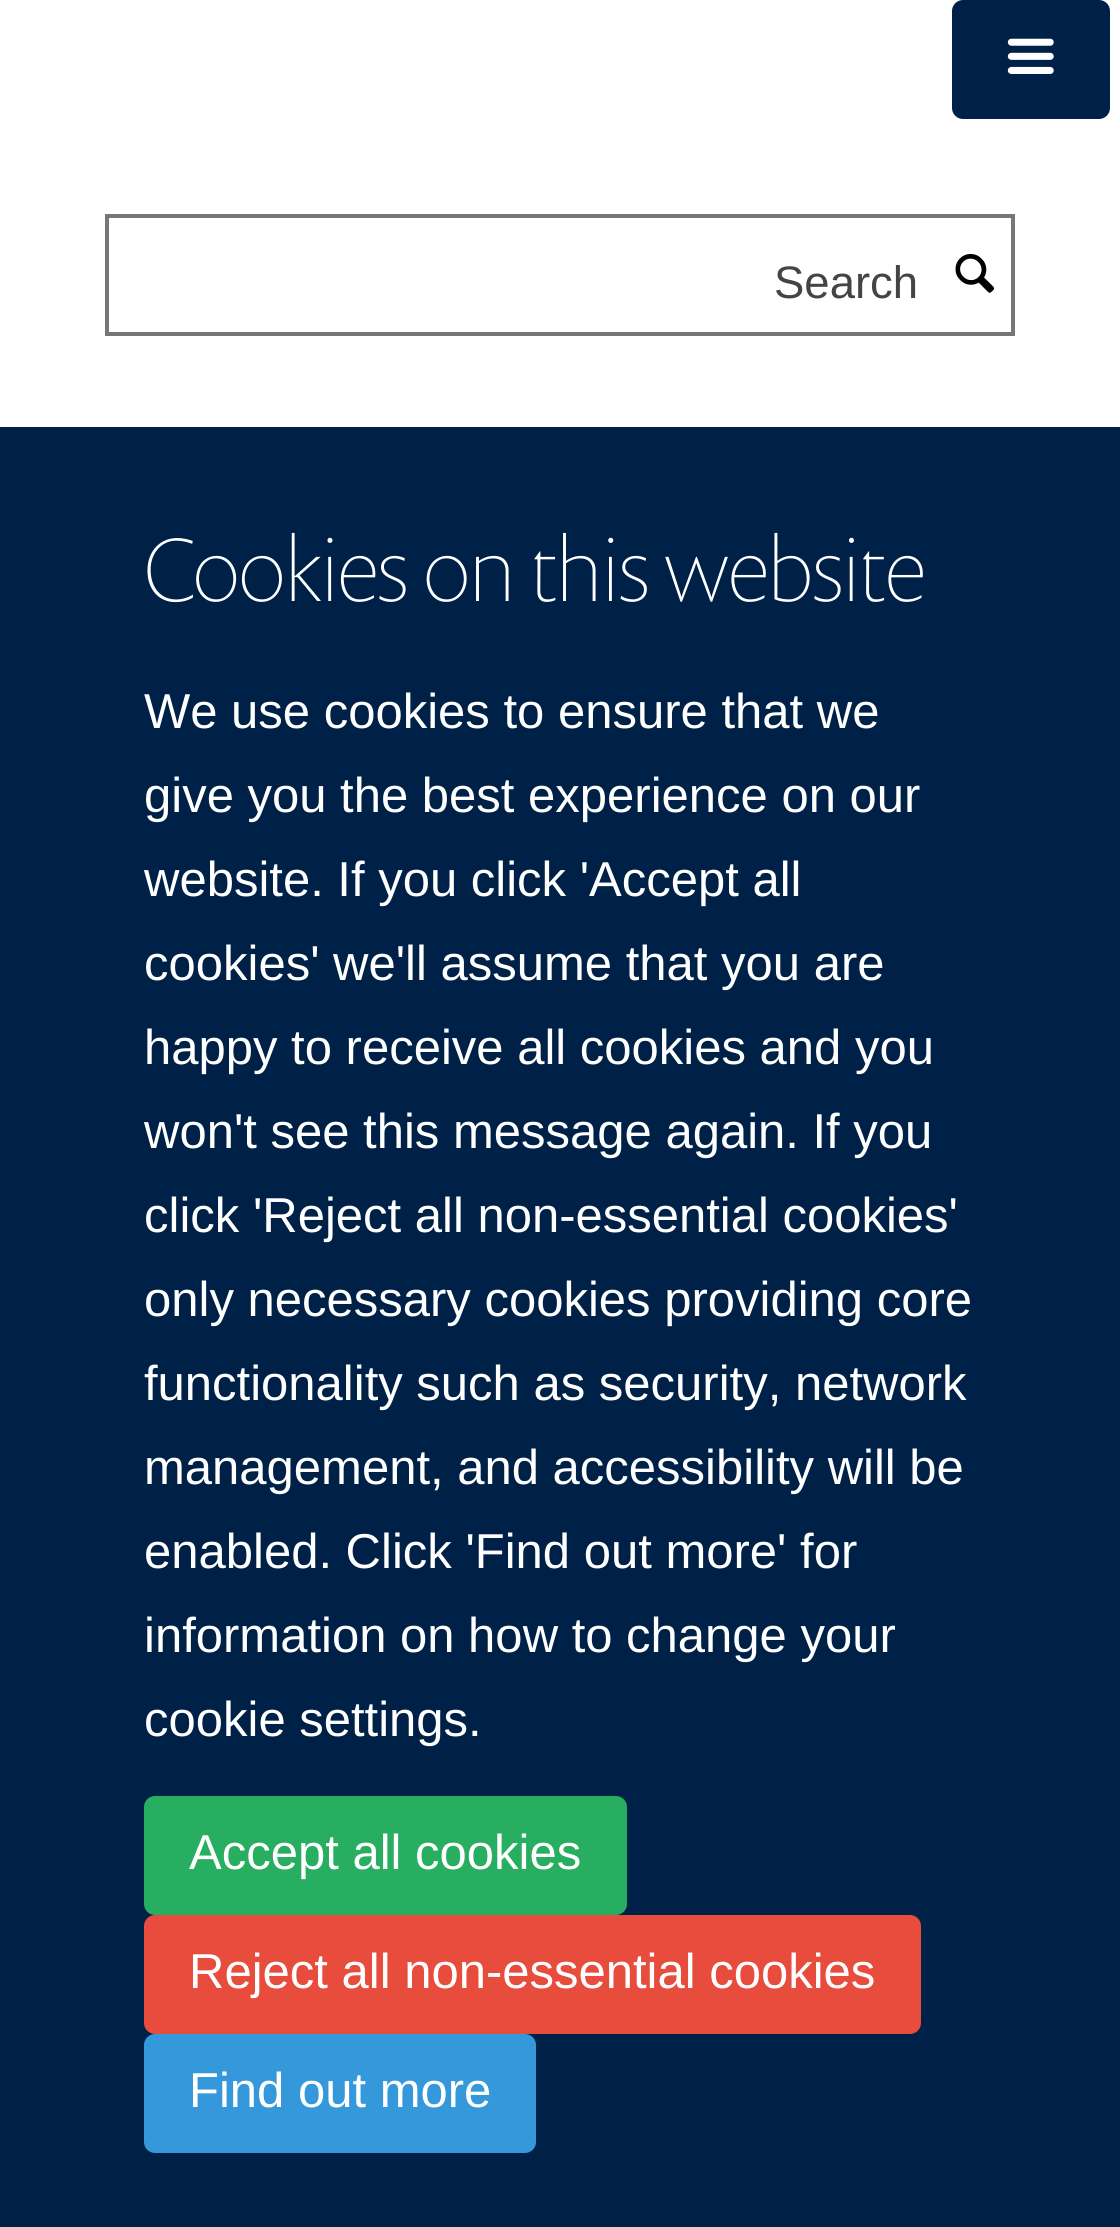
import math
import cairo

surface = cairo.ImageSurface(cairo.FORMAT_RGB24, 1120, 2227)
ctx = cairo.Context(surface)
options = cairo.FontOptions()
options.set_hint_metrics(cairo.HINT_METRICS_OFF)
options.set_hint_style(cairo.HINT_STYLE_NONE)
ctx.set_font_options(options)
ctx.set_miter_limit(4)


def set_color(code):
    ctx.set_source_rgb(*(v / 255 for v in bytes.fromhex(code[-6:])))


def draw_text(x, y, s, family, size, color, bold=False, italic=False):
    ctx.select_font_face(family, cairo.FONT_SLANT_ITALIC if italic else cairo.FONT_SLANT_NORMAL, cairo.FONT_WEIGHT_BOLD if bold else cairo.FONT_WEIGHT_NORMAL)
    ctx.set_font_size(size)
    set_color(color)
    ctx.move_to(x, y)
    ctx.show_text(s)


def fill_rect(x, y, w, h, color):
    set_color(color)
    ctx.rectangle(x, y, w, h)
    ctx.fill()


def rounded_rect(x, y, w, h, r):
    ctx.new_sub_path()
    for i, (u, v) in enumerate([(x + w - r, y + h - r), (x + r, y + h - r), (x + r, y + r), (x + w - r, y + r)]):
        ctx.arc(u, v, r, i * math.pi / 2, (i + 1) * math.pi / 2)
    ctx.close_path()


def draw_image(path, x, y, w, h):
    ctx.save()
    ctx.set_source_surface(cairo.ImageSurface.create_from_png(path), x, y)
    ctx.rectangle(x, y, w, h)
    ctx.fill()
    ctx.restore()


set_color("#ffffff")
ctx.paint()
set_color("#002147")
rounded_rect(954, 2, 154, 115, 9)
ctx.fill_preserve()
ctx.set_line_width(4)
ctx.stroke()
draw_image("assets/img1.png", 1007, 38, 47, 36)
ctx.rectangle(107, 216, 906, 118)
set_color("#777777")
ctx.stroke()
draw_text(774, 298, "Search", "Liberation Sans", 45.5, "#444444")
draw_image("assets/img2.png", 955, 253, 40, 40)
fill_rect(0, 427, 1120, 1800, "#002147")
draw_text(144, 601, "Cookies on this website", "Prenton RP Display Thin", 91, "#ffffff")
draw_text(144, 728, "We use cookies to ensure that we", "Liberation Sans", 49, "#ffffff")
draw_text(144, 812, "give you the best experience on our", "Liberation Sans", 49, "#ffffff")
draw_text(144, 896, "website. If you click 'Accept all", "Liberation Sans", 49, "#ffffff")
draw_text(144, 980, "cookies' we'll assume that you are", "Liberation Sans", 49, "#ffffff")
draw_text(144, 1064, "happy to receive all cookies and you", "Liberation Sans", 49, "#ffffff")
draw_text(144, 1148, "won't see this message again. If you", "Liberation Sans", 49, "#ffffff")
draw_text(144, 1232, "click 'Reject all non-essential cookies'", "Liberation Sans", 49, "#ffffff")
draw_text(144, 1316, "only necessary cookies providing core", "Liberation Sans", 49, "#ffffff")
draw_text(144, 1400, "functionality such as security, network", "Liberation Sans", 49, "#ffffff")
draw_text(144, 1484, "management, and accessibility will be", "Liberation Sans", 49, "#ffffff")
draw_text(144, 1568, "enabled. Click 'Find out more' for", "Liberation Sans", 49, "#ffffff")
draw_text(144, 1652, "information on how to change your", "Liberation Sans", 49, "#ffffff")
draw_text(144, 1736, "cookie settings.", "Liberation Sans", 49, "#ffffff")
set_color("#27ae60")
rounded_rect(146, 1798, 479, 115, 9)
ctx.fill_preserve()
ctx.stroke()
draw_text(189, 1869, "Accept all cookies", "Liberation Sans", 49, "#ffffff")
set_color("#e74c3c")
rounded_rect(146, 1917, 773, 115, 9)
ctx.fill_preserve()
ctx.stroke()
draw_text(189, 1988, "Reject all non-essential cookies", "Liberation Sans", 49, "#ffffff")
set_color("#3498db")
rounded_rect(146, 2036, 388, 115, 9)
ctx.fill_preserve()
ctx.stroke()
draw_text(189, 2107, "Find out more", "Liberation Sans", 49, "#ffffff")
surface.write_to_png("output.png")
